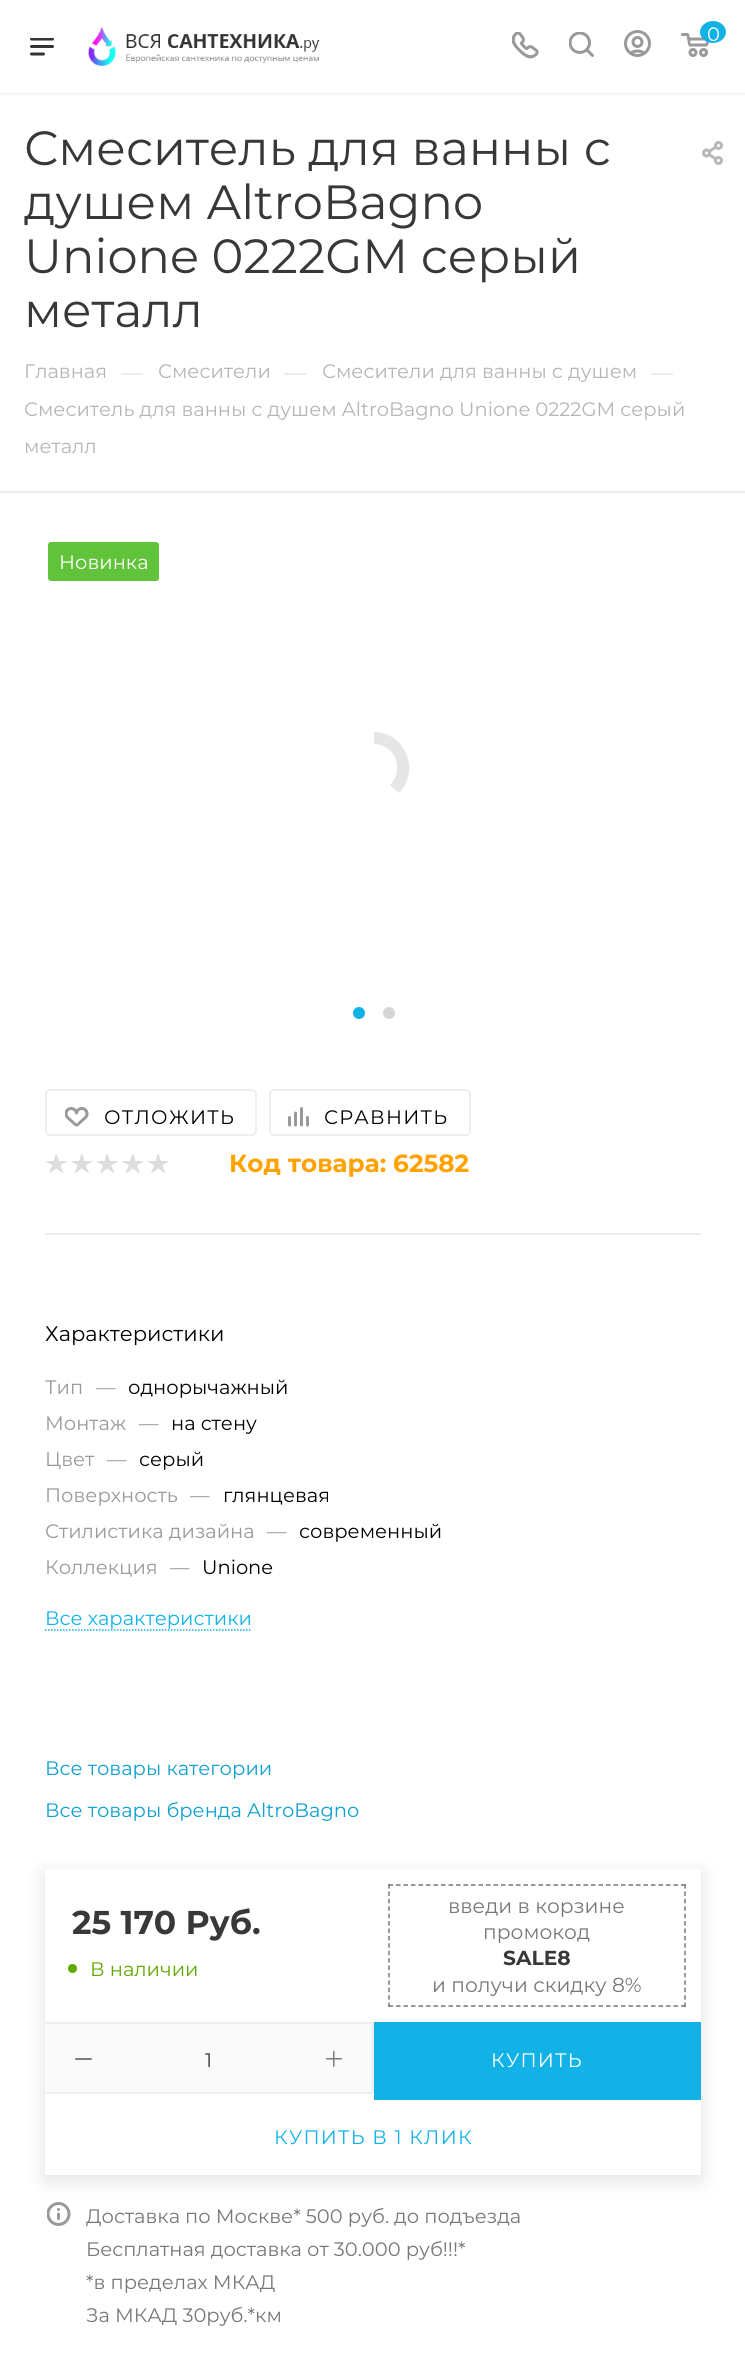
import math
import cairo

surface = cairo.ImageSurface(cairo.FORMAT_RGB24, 745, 2358)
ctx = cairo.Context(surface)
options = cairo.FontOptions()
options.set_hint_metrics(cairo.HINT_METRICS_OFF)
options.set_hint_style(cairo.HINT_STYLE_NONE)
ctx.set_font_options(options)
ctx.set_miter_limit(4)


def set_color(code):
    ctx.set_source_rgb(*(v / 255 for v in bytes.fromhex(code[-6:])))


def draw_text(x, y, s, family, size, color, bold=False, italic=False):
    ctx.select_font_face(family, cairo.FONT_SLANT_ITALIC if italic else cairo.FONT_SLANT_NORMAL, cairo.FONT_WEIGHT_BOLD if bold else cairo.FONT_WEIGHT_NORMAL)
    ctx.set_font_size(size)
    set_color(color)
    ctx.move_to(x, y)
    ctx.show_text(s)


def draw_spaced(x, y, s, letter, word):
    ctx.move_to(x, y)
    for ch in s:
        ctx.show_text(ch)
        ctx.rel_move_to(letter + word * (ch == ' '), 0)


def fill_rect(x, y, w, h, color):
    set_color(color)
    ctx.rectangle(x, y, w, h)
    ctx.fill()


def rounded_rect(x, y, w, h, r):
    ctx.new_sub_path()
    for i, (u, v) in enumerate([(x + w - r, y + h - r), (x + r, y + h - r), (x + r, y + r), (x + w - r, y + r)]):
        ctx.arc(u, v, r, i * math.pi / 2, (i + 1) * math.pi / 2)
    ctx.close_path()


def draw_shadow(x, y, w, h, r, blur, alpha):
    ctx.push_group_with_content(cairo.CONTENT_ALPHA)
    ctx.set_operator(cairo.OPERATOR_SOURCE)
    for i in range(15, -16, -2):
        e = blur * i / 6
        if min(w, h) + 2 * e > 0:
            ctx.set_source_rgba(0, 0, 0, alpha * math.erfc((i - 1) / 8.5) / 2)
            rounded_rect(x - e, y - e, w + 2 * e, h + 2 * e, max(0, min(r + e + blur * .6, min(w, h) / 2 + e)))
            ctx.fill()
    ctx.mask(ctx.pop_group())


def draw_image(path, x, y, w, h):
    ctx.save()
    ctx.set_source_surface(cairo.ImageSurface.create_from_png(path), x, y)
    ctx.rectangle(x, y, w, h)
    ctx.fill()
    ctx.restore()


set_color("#ffffff")
ctx.paint()
fill_rect(0, 93, 745, 2, "#f5f5f5")
draw_image("assets/img1.png", 88, 26, 232, 40)
draw_image("assets/img2.png", 512, 32, 27, 27)
draw_image("assets/img3.png", 569, 32, 25, 25)
draw_image("assets/img4.png", 624, 30, 27, 27)
draw_image("assets/img5.png", 681, 33, 28, 24)
set_color("#12b2e7")
ctx.new_path()
ctx.move_to(713, 21)
ctx.curve_to(720, 21, 726, 26, 726, 32)
ctx.curve_to(726, 38, 720, 43, 713, 43)
ctx.curve_to(706, 43, 700, 38, 700, 32)
ctx.curve_to(700, 26, 706, 21, 713, 21)
ctx.close_path()
ctx.fill()
draw_text(707, 41, "0", "Montserrat", 19.5, "#ffffff")
draw_image("assets/img6.png", 30, 38, 24, 18)
draw_text(24, 165, "Смеситель для ванны с", "Montserrat", 48, "#383838")
draw_text(24, 219, "душем AltroBagno", "Montserrat", 48, "#383838")
draw_text(24, 273, "Unione 0222GM серый", "Montserrat", 48, "#383838")
draw_text(24, 327, "металл", "Montserrat", 48, "#383838")
draw_image("assets/img7.png", 702, 141, 21, 24)
draw_text(24, 378, "Главная", "Montserrat", 19.5, "#b6b5b5")
draw_text(121, 380, "—", "Montserrat", 22, "#dddddd")
draw_text(158, 378, "Смесители", "Montserrat", 19.5, "#b6b5b5")
draw_text(284, 380, "—", "Montserrat", 22, "#dddddd")
draw_text(322, 378, "Смесители для ванны с душем", "Montserrat", 19.5, "#b6b5b5")
draw_text(651, 380, "—", "Montserrat", 22, "#dddddd")
draw_text(24, 416, "Смеситель для ванны с душем AltroBagno Unione 0222GM серый", "Montserrat", 19.5, "#b6b5b5")
draw_text(24, 453, "металл", "Montserrat", 19.5, "#b6b5b5")
fill_rect(0, 491, 745, 2, "#ececec")
set_color("#60c339")
rounded_rect(48, 542, 111, 39, 3)
ctx.fill()
draw_text(59, 569, "Новинка", "Montserrat", 19.5, "#ffffff")
set_color("#e6e6e6")
ctx.new_path()
ctx.move_to(374, 732)
ctx.curve_to(405, 732, 421, 771, 399, 793)
ctx.line_to(390, 785)
ctx.curve_to(405, 770, 395, 744, 374, 744)
ctx.close_path()
ctx.fill()
set_color("#12b2e7")
ctx.arc(359, 1013, 6, 0, 2 * math.pi)
ctx.fill()
set_color("#d6d6d6")
ctx.arc(389, 1013, 6, 0, 2 * math.pi)
ctx.fill()
fill_rect(45, 1233, 656, 2, "#ececec")
rounded_rect(46, 1090, 210, 45, 4)
set_color("#eeeeee")
ctx.stroke()
draw_image("assets/img8.png", 65, 1107, 24, 20)
set_color("#000000")
draw_spaced(104, 1124, "ОТЛОЖИТЬ", 1.25, 0)
rounded_rect(270, 1090, 200, 45, 4)
set_color("#eeeeee")
ctx.stroke()
draw_image("assets/img9.png", 288, 1107, 21, 20)
set_color("#000000")
draw_spaced(324, 1124, "СРАВНИТЬ", 1.25, 0)
draw_image("assets/img10.png", 46, 1154, 21, 19)
draw_image("assets/img11.png", 71, 1154, 21, 19)
draw_image("assets/img10.png", 97, 1154, 21, 19)
draw_image("assets/img11.png", 122, 1154, 21, 19)
draw_image("assets/img10.png", 148, 1154, 21, 19)
draw_text(229, 1172, "Код товара: 62582", "Montserrat", 24.75, "#ffa200", bold=True)
draw_text(45, 1341, "Характеристики", "Montserrat", 21, "#000000")
draw_text(45, 1394, "Тип", "Montserrat", 19.5, "#999999")
draw_text(96, 1394, "—", "Montserrat", 19.5, "#999999")
draw_text(128, 1394, "однорычажный", "Montserrat", 19.5, "#000000")
draw_text(45, 1430, "Монтаж", "Montserrat", 19.5, "#999999")
draw_text(139, 1430, "—", "Montserrat", 19.5, "#999999")
draw_text(171, 1430, "на стену", "Montserrat", 19.5, "#000000")
draw_text(45, 1466, "Цвет", "Montserrat", 19.5, "#999999")
draw_text(107, 1466, "—", "Montserrat", 19.5, "#999999")
draw_text(139, 1466, "серый", "Montserrat", 19.5, "#000000")
draw_text(45, 1502, "Поверхность", "Montserrat", 19.5, "#999999")
draw_text(190, 1502, "—", "Montserrat", 19.5, "#999999")
draw_text(223, 1502, "глянцевая", "Montserrat", 19.5, "#000000")
draw_text(45, 1538, "Стилистика дизайна", "Montserrat", 19.5, "#999999")
draw_text(267, 1538, "—", "Montserrat", 19.5, "#999999")
draw_text(299, 1538, "современный", "Montserrat", 19.5, "#000000")
draw_text(45, 1574, "Коллекция", "Montserrat", 19.5, "#999999")
draw_text(170, 1574, "—", "Montserrat", 19.5, "#999999")
draw_text(202, 1574, "Unione", "Montserrat", 19.5, "#000000")
draw_text(45, 1625, "Все характеристики", "Montserrat", 19.5, "#12b2e7")
ctx.new_path()
ctx.move_to(45, 1630)
ctx.line_to(252, 1630)
ctx.set_line_width(1.5)
ctx.set_dash([1.5, 1.5])
ctx.stroke()
draw_text(45, 1775, "Все товары категории", "Montserrat", 19.5, "#0fa0d0")
draw_text(45, 1817, "Все товары бренда AltroBagno", "Montserrat", 19.5, "#0fa0d0")
ctx.save()
ctx.set_fill_rule(cairo.FILL_RULE_EVEN_ODD)
ctx.new_path()
ctx.move_to(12, 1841)
ctx.line_to(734, 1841)
ctx.line_to(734, 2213)
ctx.line_to(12, 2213)
ctx.close_path()
ctx.move_to(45, 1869)
ctx.line_to(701, 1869)
ctx.line_to(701, 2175)
ctx.line_to(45, 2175)
ctx.close_path()
ctx.clip()
set_color("#000000")
draw_shadow(45, 1874, 656, 306, 0, 10.5, 0.12)
ctx.restore()
draw_text(72, 1934, "25 170 Руб.", "Montserrat", 33, "#383838", bold=True)
set_color("#5fa800")
ctx.new_path()
ctx.arc(72.5, 1968.5, 4.5, 0, 2 * math.pi)
ctx.fill()
draw_text(90, 1976, "В наличии", "Montserrat", 19.5, "#5fa800")
ctx.new_path()
ctx.move_to(388.5, 1885)
ctx.line_to(685.5, 1885)
set_color("#777777")
ctx.set_dash([4.5, 3])
ctx.stroke()
ctx.new_path()
ctx.move_to(685, 1884)
ctx.line_to(685, 2007)
ctx.set_dash([4.5, 2.91])
ctx.stroke()
ctx.new_path()
ctx.move_to(388.5, 2006)
ctx.line_to(685.5, 2006)
ctx.set_dash([4.5, 3])
ctx.stroke()
ctx.new_path()
ctx.move_to(389, 1884)
ctx.line_to(389, 2007)
ctx.set_dash([4.5, 2.91])
ctx.stroke()
draw_text(448, 1913, "введи в корзине", "Montserrat", 20.25, "#777777")
draw_text(483, 1939, "промокод", "Montserrat", 20.25, "#777777")
draw_text(503, 1965, "SALE8", "Montserrat", 20.25, "#383838", bold=True)
draw_text(432, 1992, "и получи скидку 8%", "Montserrat", 20.25, "#777777")
fill_rect(45, 2022, 327, 72, "#fafafa")
set_color("#eeeeee")
ctx.new_path()
ctx.move_to(45, 2022)
ctx.line_to(374, 2022)
ctx.line_to(372, 2024)
ctx.line_to(46, 2024)
ctx.close_path()
ctx.fill()
fill_rect(372, 2022, 2, 72, "#eeeeee")
ctx.new_path()
ctx.move_to(374, 2094)
ctx.line_to(45, 2094)
ctx.line_to(46, 2092)
ctx.line_to(372, 2092)
ctx.close_path()
ctx.fill()
set_color("#7d7d7d")
rounded_rect(75, 2058, 17, 2, 1)
ctx.fill()
draw_text(205, 2067, "1", "Montserrat", 19.5, "#383838")
draw_image("assets/img12.png", 326, 2051, 16, 16)
fill_rect(374, 2022, 327, 78, "#12b2e7")
set_color("#ffffff")
draw_spaced(491, 2067, "КУПИТЬ", 1.25, 0)
set_color("#12b2e7")
draw_spaced(274, 2144, "КУПИТЬ В 1 КЛИК", 1.25, 0)
draw_image("assets/img13.png", 47, 2202, 24, 24)
draw_text(86, 2223, "Доставка по Москве* 500 руб. до подъезда", "Montserrat", 19.5, "#777777")
draw_text(86, 2256, "Бесплатная доставка от 30.000 руб!!!*", "Montserrat", 19.5, "#777777")
draw_text(86, 2289, "*в пределах МКАД", "Montserrat", 19.5, "#777777")
draw_text(86, 2322, "За МКАД 30руб.*км", "Montserrat", 19.5, "#777777")
surface.write_to_png("output.png")
